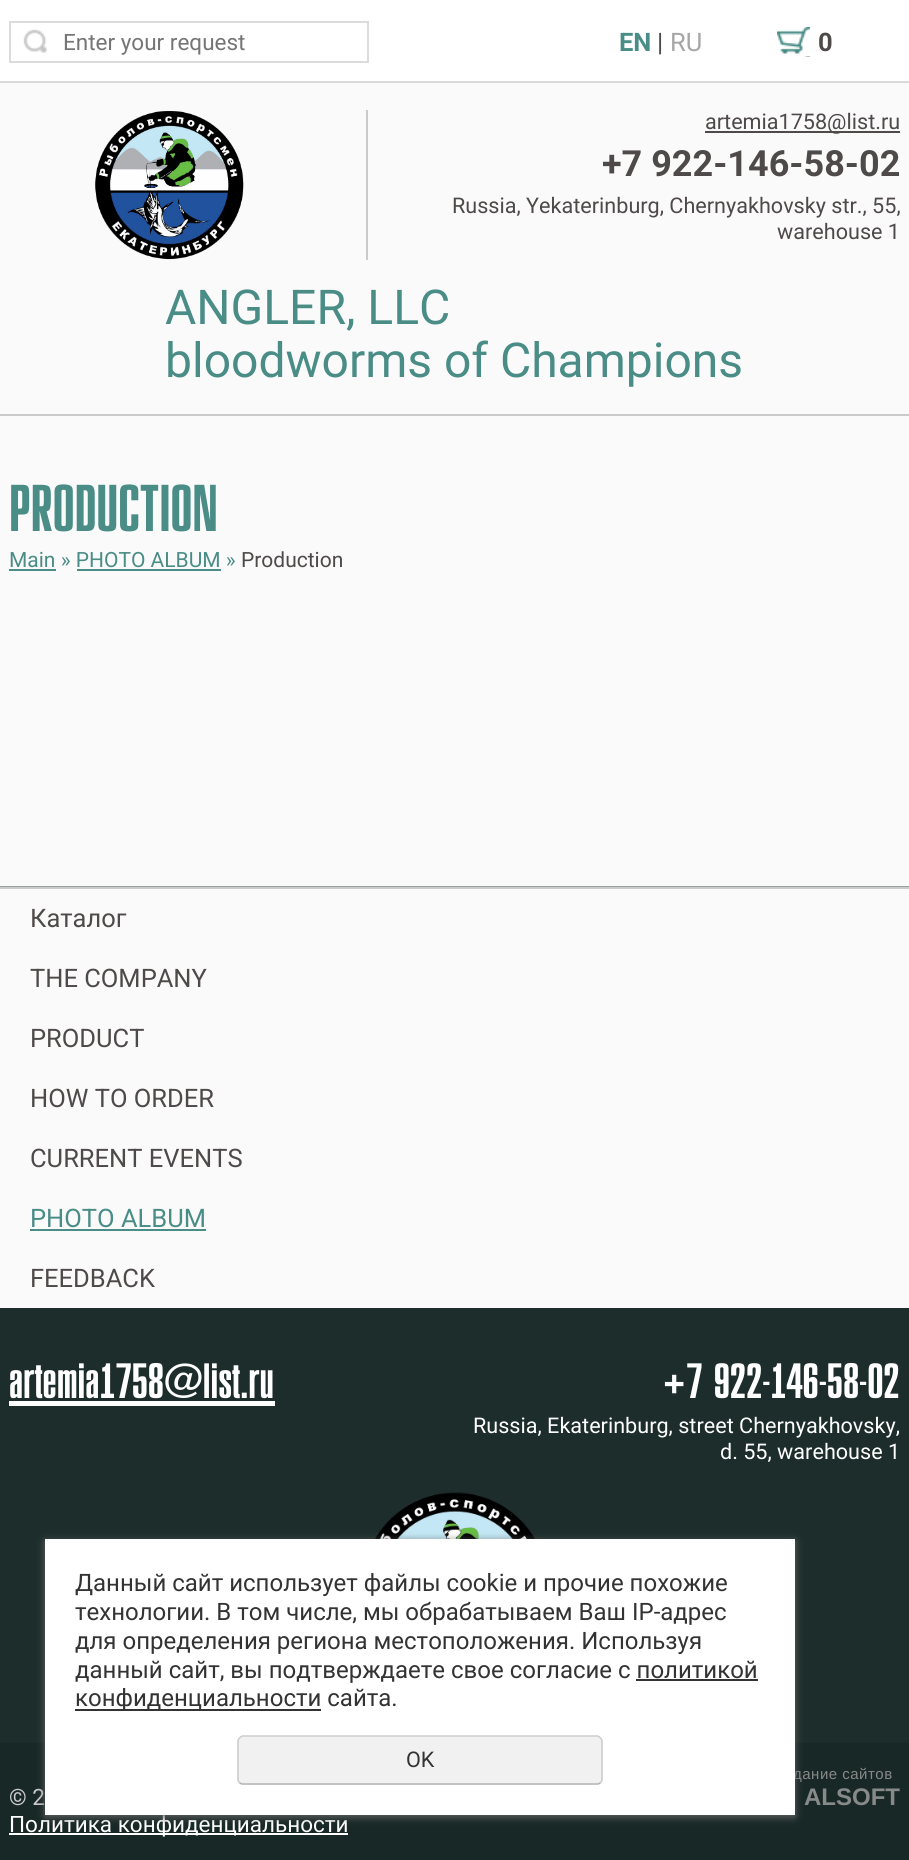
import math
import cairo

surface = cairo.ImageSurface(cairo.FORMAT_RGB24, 909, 1860)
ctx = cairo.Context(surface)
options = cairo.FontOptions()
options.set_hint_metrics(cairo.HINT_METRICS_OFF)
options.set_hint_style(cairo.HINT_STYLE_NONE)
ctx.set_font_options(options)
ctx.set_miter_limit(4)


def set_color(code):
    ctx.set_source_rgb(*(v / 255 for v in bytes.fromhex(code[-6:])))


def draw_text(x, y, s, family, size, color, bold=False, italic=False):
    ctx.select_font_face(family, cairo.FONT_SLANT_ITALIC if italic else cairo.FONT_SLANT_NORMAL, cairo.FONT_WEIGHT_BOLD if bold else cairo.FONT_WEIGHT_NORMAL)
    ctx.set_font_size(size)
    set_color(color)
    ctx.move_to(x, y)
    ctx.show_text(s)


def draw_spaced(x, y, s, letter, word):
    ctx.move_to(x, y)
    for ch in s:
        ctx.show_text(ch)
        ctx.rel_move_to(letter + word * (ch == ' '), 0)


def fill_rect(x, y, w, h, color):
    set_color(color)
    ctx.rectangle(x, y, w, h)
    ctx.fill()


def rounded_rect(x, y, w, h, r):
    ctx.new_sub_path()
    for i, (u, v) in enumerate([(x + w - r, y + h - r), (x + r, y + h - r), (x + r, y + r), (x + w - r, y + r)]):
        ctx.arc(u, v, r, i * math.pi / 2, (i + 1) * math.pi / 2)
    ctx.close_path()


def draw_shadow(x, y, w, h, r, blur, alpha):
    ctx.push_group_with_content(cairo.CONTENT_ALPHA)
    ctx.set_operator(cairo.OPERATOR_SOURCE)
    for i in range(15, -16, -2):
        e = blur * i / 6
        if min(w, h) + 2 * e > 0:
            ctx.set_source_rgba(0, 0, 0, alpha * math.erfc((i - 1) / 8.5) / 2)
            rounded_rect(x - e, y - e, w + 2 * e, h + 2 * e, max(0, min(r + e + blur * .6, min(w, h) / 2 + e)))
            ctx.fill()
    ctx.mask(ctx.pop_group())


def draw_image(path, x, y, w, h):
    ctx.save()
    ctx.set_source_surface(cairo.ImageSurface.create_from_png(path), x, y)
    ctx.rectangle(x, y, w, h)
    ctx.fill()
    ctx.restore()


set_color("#fafafa")
ctx.paint()
fill_rect(0, 414, 909, 2, "#cbcbcb")
fill_rect(0, 0, 909, 81, "#ffffff")
fill_rect(0, 81, 909, 2, "#d9d9d9")
ctx.rectangle(10, 22, 358, 40)
set_color("#dcdcdc")
ctx.stroke()
draw_image("assets/img1.png", 23, 29, 24, 24)
draw_text(63, 50, "Enter your request", "Roboto", 22.5, "#757575")
draw_text(619, 51, "EN", "Roboto", 25.5, "#4a8c86", bold=True)
draw_text(657, 51, "|", "Roboto", 25.5, "#4f4a4a")
draw_text(670, 51, "RU", "Roboto", 25.5, "#a7a5a5")
draw_image("assets/img2.png", 777, 27, 33, 30)
draw_text(818, 51, "0", "Roboto", 25.5, "#4f4a4a", bold=True)
fill_rect(366, 110, 2, 150, "#cacaca")
draw_image("assets/img3.png", 95, 110, 149, 150)
fill_rect(705, 131, 195, 2, "#4f4a4a")
draw_text(705, 129, "artemia1758@list.ru", "Roboto", 21.6, "#4f4a4a")
draw_text(602, 176, "+7 922-146-58-02", "Roboto", 36, "#4f4a4a", bold=True)
draw_text(452, 213, "Russia, Yekaterinburg, Chernyakhovsky str., 55,", "Roboto", 21.6, "#4f4a4a")
draw_text(777, 239, "warehouse 1", "Roboto", 21.6, "#4f4a4a")
draw_text(165, 324, "ANGLER, LLC", "Roboto", 48, "#4a8c86")
draw_text(165, 377, "bloodworms of Champions", "Roboto", 48, "#4a8c86")
draw_text(9, 531, "PRODUCTION", "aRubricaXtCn", 60, "#4a8c86")
draw_text(9, 567, "Main » PHOTO ALBUM »", "Roboto", 21, "#4a8c86")
fill_rect(9, 569, 47, 2, "#4a8c86")
draw_text(241, 567, "Production", "Roboto", 21, "#4f4a4a")
fill_rect(77, 569, 144, 2, "#4a8c86")
fill_rect(0, 1308, 909, 435, "#1c2d2b")
draw_image("assets/img4.png", 0, 886, 909, 1)
fill_rect(0, 887, 909, 2, "#cbcbcb")
draw_text(30, 927, "Каталог", "Roboto", 25.5, "#4f4a4a")
draw_text(30, 987, "THE COMPANY", "Roboto", 25.5, "#4f4a4a")
draw_text(30, 1047, "PRODUCT", "Roboto", 25.5, "#4f4a4a")
draw_text(30, 1107, "HOW TO ORDER", "Roboto", 25.5, "#4f4a4a")
draw_text(30, 1167, "CURRENT EVENTS", "Roboto", 25.5, "#4f4a4a")
draw_text(30, 1227, "PHOTO ALBUM", "Roboto", 25.5, "#4a8c86")
fill_rect(30, 1229, 176, 2, "#4a8c86")
draw_text(30, 1287, "FEEDBACK", "Roboto", 25.5, "#4f4a4a")
draw_text(9, 1398, "artemia1758@list.ru", "aRubricaXtCn", 45, "#ffffff")
fill_rect(9, 1401, 266, 5, "#ffffff")
draw_text(662, 1398, "+7 922-146-58-02", "aRubricaXtCn", 45, "#ffffff")
draw_text(473, 1433, "Russia, Ekaterinburg, street Chernyakhovsky,", "Roboto", 21.6, "#ffffff")
draw_text(720, 1459, "d. 55, warehouse 1", "Roboto", 21.6, "#ffffff")
draw_image("assets/img5.png", 374, 1492, 162, 47)
fill_rect(0, 1743, 909, 117, "#172826")
draw_text(9, 1805, "© 2", "Roboto", 22.5, "#cbcbcb")
fill_rect(9, 1833, 339, 2, "#ffffff")
draw_text(9, 1832, "Политика конфиденциальности", "Roboto", 22.5, "#ffffff")
ctx.select_font_face("Liberation Sans")
ctx.set_font_size(15)
set_color("#888989")
draw_spaced(793, 1779, "дание сайтов", 0.5, 0)
draw_text(804, 1805, "ALSOFT", "Liberation Sans", 24, "#888989", bold=True)
set_color("#666666")
draw_shadow(45, 1541, 750, 276, 0, 4, 1)
fill_rect(45, 1539, 750, 276, "#ffffff")
draw_text(75, 1591, "Данный сайт использует файлы cookie и прочие похожие", "Roboto", 24, "#333333")
draw_text(75, 1620, "технологии. В том числе, мы обрабатываем Ваш IP-адрес", "Roboto", 24, "#333333")
draw_text(75, 1649, "для определения региона местоположения. Используя", "Roboto", 24, "#333333")
draw_text(75, 1678, "данный сайт, вы подтверждаете свое согласие с политикой", "Roboto", 24, "#333333")
fill_rect(75, 1709, 246, 2, "#333333")
draw_text(75, 1706, "конфиденциальности сайта.", "Roboto", 24, "#333333")
fill_rect(636, 1679, 122, 2, "#333333")
set_color("#f1f1f1")
rounded_rect(237, 1736, 366, 49, 6)
ctx.fill()
ctx.new_path()
ctx.move_to(600.5, 1782.5)
ctx.curve_to(599.5, 1783.5, 598.5, 1784, 597, 1784)
ctx.line_to(243, 1784)
ctx.curve_to(241.5, 1784, 240.5, 1783.5, 239.5, 1782.5)
set_color("#b3b3b3")
ctx.set_line_width(1.5)
ctx.stroke()
ctx.new_path()
ctx.move_to(239.5, 1782.5)
ctx.curve_to(238.5, 1781.5, 238, 1780.5, 238, 1779)
ctx.line_to(238, 1741.5)
ctx.curve_to(238, 1740, 238.5, 1739, 239.5, 1738)
ctx.curve_to(240.5, 1737, 241.5, 1736, 243, 1736)
ctx.line_to(597, 1736)
ctx.curve_to(598.5, 1736, 599.5, 1737, 600.5, 1738)
ctx.curve_to(601.5, 1739, 602, 1740, 602, 1741.5)
ctx.line_to(602, 1779)
ctx.curve_to(602, 1780.5, 601.5, 1781.5, 600.5, 1782.5)
set_color("#cccccc")
ctx.stroke()
draw_text(406, 1767, "OK", "Roboto", 21.6, "#333333")
surface.write_to_png("output.png")
